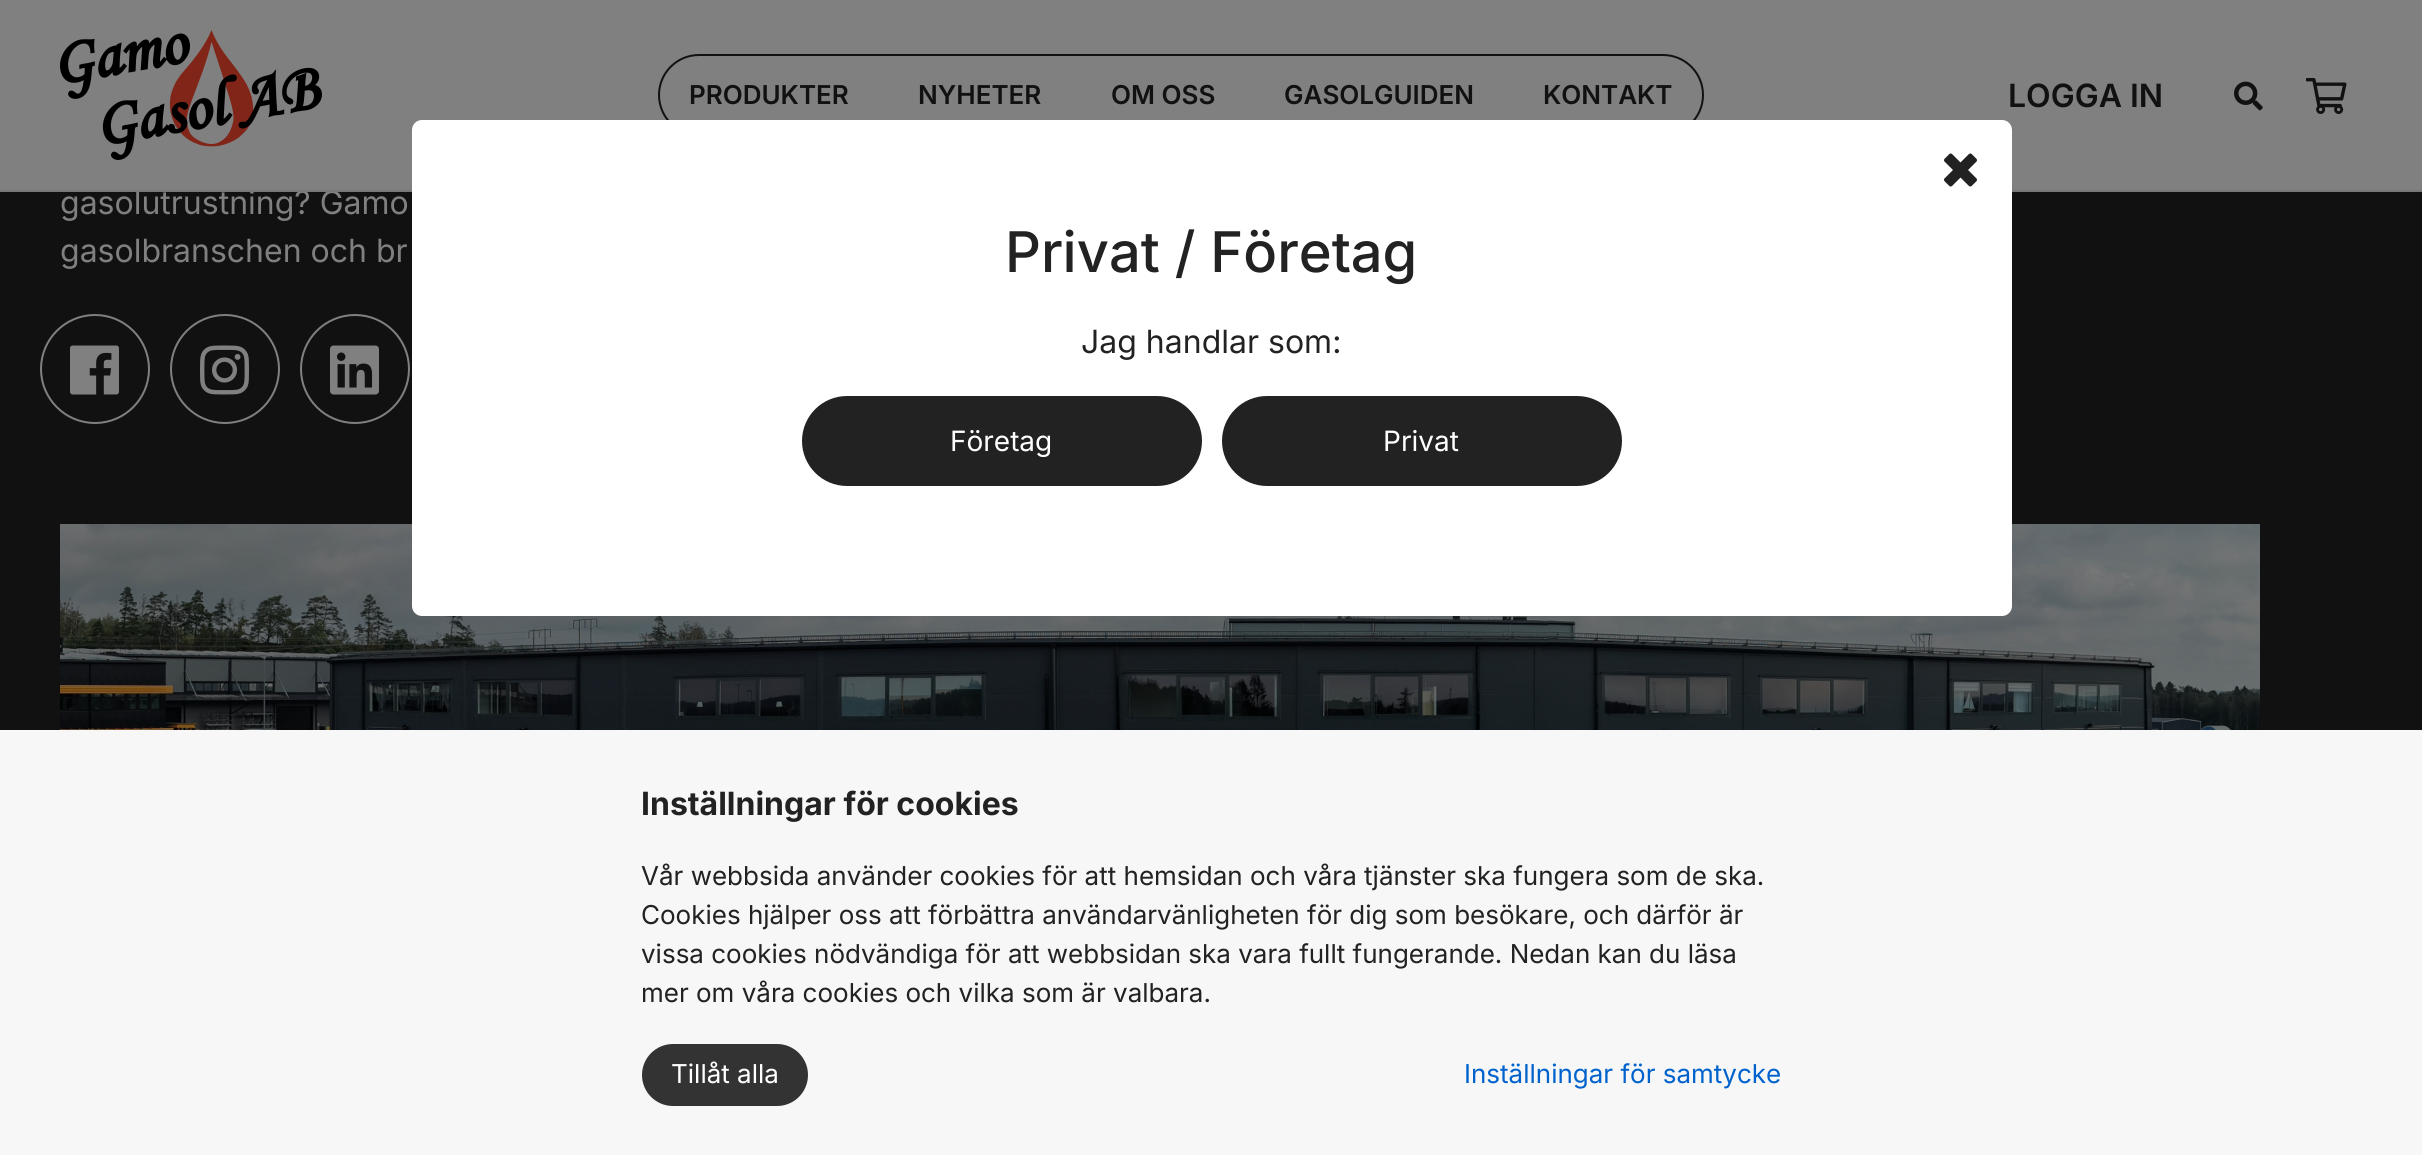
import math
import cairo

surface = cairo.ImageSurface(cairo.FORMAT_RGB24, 2422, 1155)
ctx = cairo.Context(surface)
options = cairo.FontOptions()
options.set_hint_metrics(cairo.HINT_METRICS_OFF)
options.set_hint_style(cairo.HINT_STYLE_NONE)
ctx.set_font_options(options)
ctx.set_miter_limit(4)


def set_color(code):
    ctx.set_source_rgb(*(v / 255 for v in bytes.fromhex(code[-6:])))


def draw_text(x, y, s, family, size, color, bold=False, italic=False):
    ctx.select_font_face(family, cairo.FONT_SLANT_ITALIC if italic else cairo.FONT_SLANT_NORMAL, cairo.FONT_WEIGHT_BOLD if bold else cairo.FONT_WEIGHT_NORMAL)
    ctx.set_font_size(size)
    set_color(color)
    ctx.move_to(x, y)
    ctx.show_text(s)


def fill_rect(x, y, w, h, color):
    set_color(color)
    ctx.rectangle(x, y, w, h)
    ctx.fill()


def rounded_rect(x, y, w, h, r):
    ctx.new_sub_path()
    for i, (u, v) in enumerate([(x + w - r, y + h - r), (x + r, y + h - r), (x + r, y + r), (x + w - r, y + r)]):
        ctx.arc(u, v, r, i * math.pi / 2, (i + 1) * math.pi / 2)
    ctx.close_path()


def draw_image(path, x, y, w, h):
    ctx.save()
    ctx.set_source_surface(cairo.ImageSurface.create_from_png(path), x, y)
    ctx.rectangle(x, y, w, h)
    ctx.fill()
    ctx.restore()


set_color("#111111")
ctx.paint()
fill_rect(0, 0, 2422, 190, "#808080")
draw_text(60, 214, "gasolutrustning? Gamo", "Inter", 32, "#808080")
fill_rect(0, 190, 2422, 2, "#777777")
draw_image("assets/img1.png", 60, 30, 262, 130)
rounded_rect(659, 55, 1044, 80, 40)
set_color("#111111")
ctx.stroke()
draw_text(689, 104, "PRODUKTER", "Inter SemiBold", 26, "#111111")
draw_text(918, 104, "NYHETER", "Inter SemiBold", 26, "#111111")
draw_text(1111, 104, "OM OSS", "Inter SemiBold", 26, "#111111")
draw_text(1284, 104, "GASOLGUIDEN", "Inter SemiBold", 26, "#111111")
draw_text(1543, 104, "KONTAKT", "Inter SemiBold", 26, "#111111")
draw_text(2008, 107, "LOGGA IN", "Inter SemiBold", 32, "#111111")
draw_image("assets/img2.png", 2234, 81, 29, 30)
draw_image("assets/img3.png", 2306, 78, 41, 36)
draw_text(60, 262, "gasolbranschen och br", "Inter", 32, "#808080")
ctx.new_path()
ctx.arc(95, 369, 54, 0, 2 * math.pi)
ctx.stroke()
draw_image("assets/img4.png", 70, 345, 49, 50)
ctx.arc(225, 369, 54, 0, 2 * math.pi)
ctx.stroke()
draw_image("assets/img5.png", 200, 345, 49, 50)
ctx.arc(355, 369, 54, 0, 2 * math.pi)
ctx.stroke()
draw_image("assets/img6.png", 330, 345, 49, 50)
draw_image("assets/img7.png", 60, 524, 2200, 206)
set_color("#ffffff")
rounded_rect(412, 120, 1600, 496, 10)
ctx.fill()
draw_image("assets/img8.png", 1944, 153, 33, 34)
draw_text(1005, 272, "Privat / Företag", "Inter Medium", 56, "#222222")
draw_text(1081, 353, "Jag handlar som:", "Inter", 32, "#222222")
rounded_rect(804, 398, 396, 86, 43)
ctx.fill_preserve()
ctx.set_line_width(4)
ctx.stroke()
draw_text(950, 451, "Företag", "Inter", 28, "#ffffff")
set_color("#222222")
rounded_rect(1224, 398, 396, 86, 43)
ctx.fill_preserve()
ctx.stroke()
draw_text(1383, 451, "Privat", "Inter", 28, "#ffffff")
fill_rect(0, 730, 2422, 425, "#f7f7f7")
draw_text(641, 815, "Inställningar för cookies", "Inter", 32, "#222222", bold=True)
draw_text(641, 885, "Vår webbsida använder cookies för att hemsidan och våra tjänster ska fungera som de ska.", "Inter", 26, "#222222")
draw_text(641, 924, "Cookies hjälper oss att förbättra användarvänligheten för dig som besökare, och därför är", "Inter", 26, "#222222")
draw_text(641, 963, "vissa cookies nödvändiga för att webbsidan ska vara fullt fungerande. Nedan kan du läsa", "Inter", 26, "#222222")
draw_text(641, 1002, "mer om våra cookies och vilka som är valbara.", "Inter", 26, "#222222")
set_color("#333333")
rounded_rect(642, 1044, 166, 62, 31)
ctx.fill()
draw_text(671, 1083, "Tillåt alla", "Inter", 26, "#ffffff")
draw_text(1464, 1083, "Inställningar för samtycke", "Inter", 26, "#0062cc")
surface.write_to_png("output.png")
